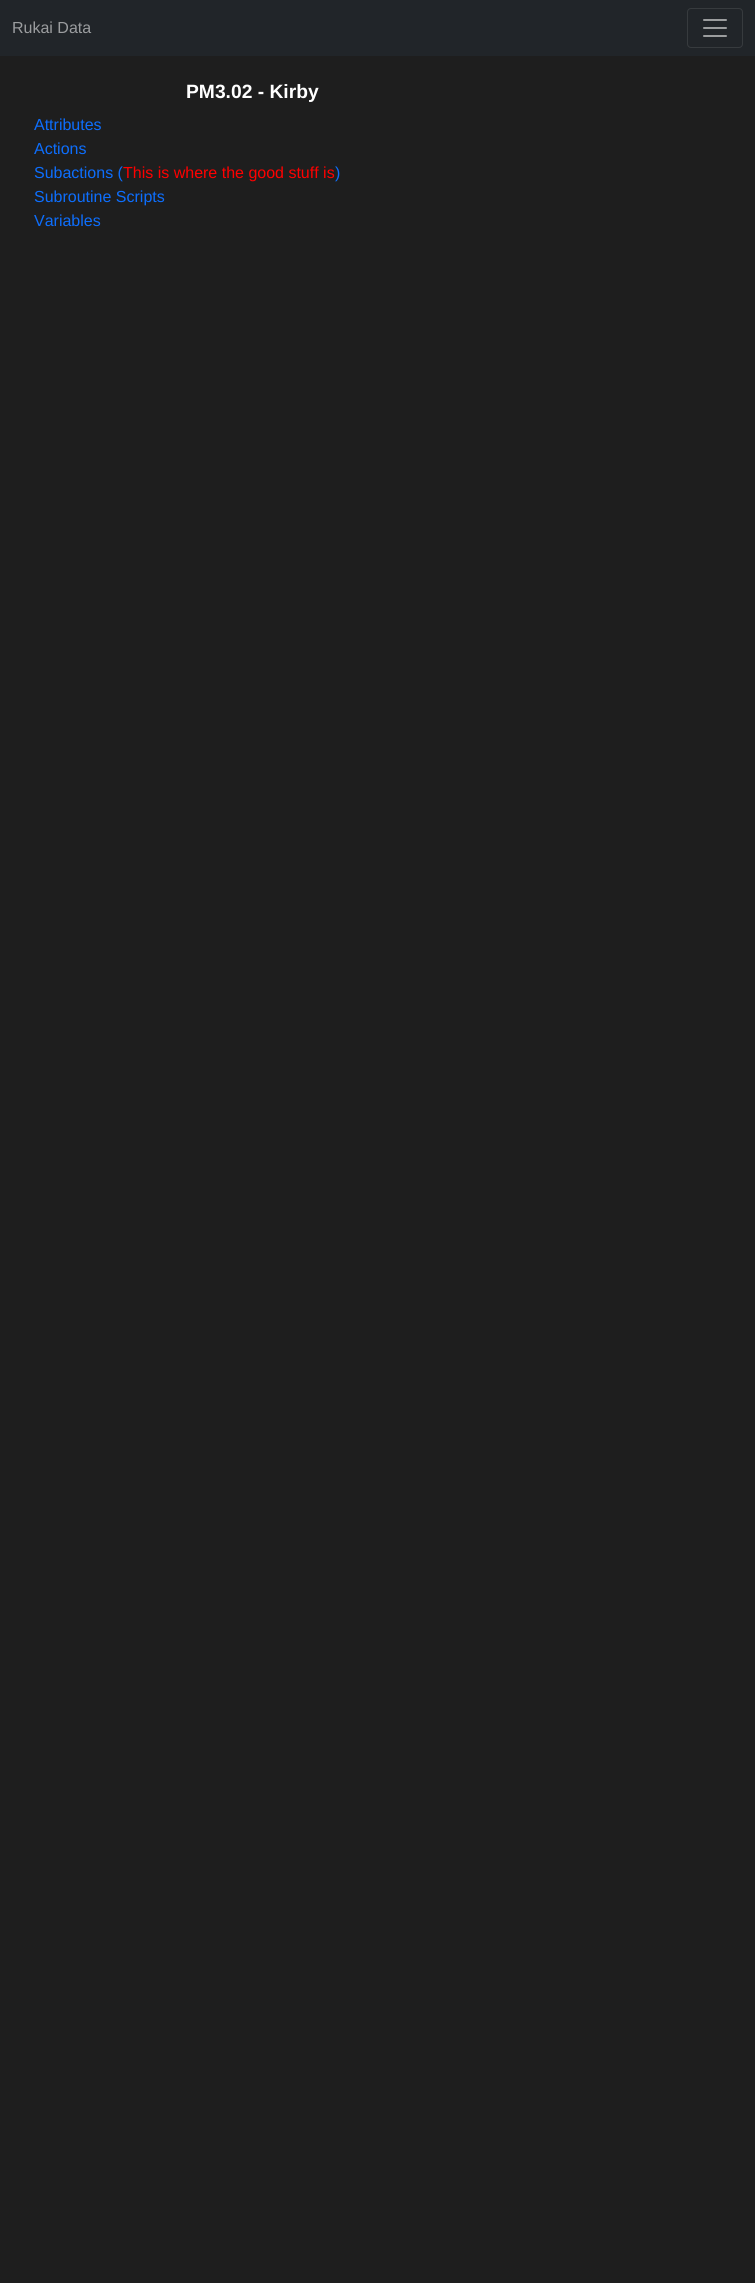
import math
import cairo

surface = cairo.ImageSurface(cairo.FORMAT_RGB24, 755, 2283)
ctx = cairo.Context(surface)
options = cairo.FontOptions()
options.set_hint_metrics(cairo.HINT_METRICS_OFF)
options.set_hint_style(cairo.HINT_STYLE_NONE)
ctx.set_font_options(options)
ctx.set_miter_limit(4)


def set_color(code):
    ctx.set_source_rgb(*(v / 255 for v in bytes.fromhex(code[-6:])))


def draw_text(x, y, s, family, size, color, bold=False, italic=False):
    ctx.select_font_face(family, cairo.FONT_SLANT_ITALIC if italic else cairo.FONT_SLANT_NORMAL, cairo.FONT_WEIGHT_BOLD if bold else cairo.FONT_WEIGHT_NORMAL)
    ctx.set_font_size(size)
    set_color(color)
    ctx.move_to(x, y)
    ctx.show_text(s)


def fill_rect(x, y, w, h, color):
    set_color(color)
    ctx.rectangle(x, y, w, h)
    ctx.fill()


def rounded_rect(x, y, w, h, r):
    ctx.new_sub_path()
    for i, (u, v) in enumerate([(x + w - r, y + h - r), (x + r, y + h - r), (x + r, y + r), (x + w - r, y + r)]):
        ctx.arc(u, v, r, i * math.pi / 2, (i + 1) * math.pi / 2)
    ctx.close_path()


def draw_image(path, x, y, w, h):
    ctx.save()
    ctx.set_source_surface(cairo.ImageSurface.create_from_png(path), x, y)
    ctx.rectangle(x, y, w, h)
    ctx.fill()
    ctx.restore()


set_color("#1e1e1e")
ctx.paint()
fill_rect(0, 0, 755, 56, "#212529")
draw_text(12, 33, "Rukai Data", "Liberation Sans", 16, "#9b9d9f")
rounded_rect(687.5, 8.5, 55, 39, 3.5)
set_color("#373b3e")
ctx.set_line_width(1)
ctx.stroke()
draw_image("assets/img1.png", 703, 19, 24, 18)
draw_text(186, 98, "PM3.02 - Kirby", "Liberation Sans", 19.25, "#ffffff", bold=True)
draw_text(34, 130, "Attributes", "Liberation Sans", 16, "#0d6efd")
draw_text(34, 154, "Actions", "Liberation Sans", 16, "#0d6efd")
draw_text(34, 178, "Subactions (", "Liberation Sans", 16, "#0d6efd")
draw_text(123, 178, "This is where the good stuff is", "Liberation Sans", 16, "#ff0000")
draw_text(335, 178, ")", "Liberation Sans", 16, "#0d6efd")
draw_text(34, 202, "Subroutine Scripts", "Liberation Sans", 16, "#0d6efd")
draw_text(34, 226, "Variables", "Liberation Sans", 16, "#0d6efd")
surface.write_to_png("output.png")
